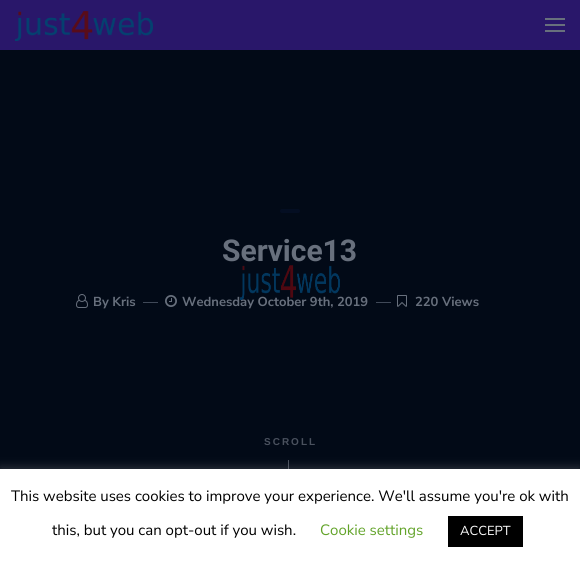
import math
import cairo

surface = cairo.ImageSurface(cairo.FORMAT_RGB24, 580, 564)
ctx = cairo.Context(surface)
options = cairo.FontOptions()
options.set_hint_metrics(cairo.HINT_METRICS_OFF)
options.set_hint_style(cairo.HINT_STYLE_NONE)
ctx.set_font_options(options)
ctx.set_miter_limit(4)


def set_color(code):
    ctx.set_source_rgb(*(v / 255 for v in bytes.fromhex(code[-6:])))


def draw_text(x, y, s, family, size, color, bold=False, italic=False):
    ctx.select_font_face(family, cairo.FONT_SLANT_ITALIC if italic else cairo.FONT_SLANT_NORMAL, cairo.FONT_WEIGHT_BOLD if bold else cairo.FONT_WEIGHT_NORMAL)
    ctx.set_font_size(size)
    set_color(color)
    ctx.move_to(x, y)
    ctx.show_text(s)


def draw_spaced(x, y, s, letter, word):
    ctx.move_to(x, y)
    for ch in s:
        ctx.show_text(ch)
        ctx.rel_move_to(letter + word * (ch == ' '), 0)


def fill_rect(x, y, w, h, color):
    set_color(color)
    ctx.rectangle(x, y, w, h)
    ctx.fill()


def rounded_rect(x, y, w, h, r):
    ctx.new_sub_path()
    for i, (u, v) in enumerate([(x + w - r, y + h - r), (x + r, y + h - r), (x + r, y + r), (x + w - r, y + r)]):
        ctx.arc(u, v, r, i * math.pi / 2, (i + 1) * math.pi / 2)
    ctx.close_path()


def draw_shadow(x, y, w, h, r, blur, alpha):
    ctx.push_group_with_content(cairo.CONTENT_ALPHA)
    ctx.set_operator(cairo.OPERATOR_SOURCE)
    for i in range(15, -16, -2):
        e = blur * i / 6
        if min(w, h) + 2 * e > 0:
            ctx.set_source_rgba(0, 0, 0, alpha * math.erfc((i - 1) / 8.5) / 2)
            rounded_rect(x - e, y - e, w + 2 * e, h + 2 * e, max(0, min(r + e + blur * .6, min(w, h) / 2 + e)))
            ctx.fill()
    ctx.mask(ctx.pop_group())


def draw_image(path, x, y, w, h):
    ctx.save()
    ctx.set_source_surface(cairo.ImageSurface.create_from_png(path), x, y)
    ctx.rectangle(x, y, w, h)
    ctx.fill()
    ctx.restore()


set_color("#020a17")
ctx.paint()
fill_rect(0, 0, 580, 50, "#29176a")
draw_image("assets/img1.png", 15, 11, 138, 30)
fill_rect(545, 18, 20, 2, "#68707d")
fill_rect(545, 24, 20, 2, "#68707d")
fill_rect(545, 30, 20, 2, "#68707d")
set_color("#040e22")
rounded_rect(280, 209, 20, 4, 2)
ctx.fill()
draw_text(222, 261, "Service13", "Roboto", 30, "#68707d", bold=True)
draw_image("assets/img2.png", 76, 294, 12, 14)
draw_text(93, 306, "By Kris", "Nunito Sans", 13, "#68707d", bold=True)
fill_rect(143, 302, 15, 1, "#404958")
draw_image("assets/img3.png", 165, 295, 12, 12)
draw_text(182, 306, "Wednesday October 9th, 2019", "Nunito Sans", 13, "#68707d", bold=True)
fill_rect(376, 302, 15, 1, "#404958")
draw_image("assets/img4.png", 397, 295, 10, 12)
draw_text(415, 306, "220 Views", "Nunito Sans", 13, "#68707d", bold=True)
ctx.select_font_face("Liberation Sans", cairo.FONT_SLANT_NORMAL, cairo.FONT_WEIGHT_BOLD)
ctx.set_font_size(10)
set_color("#4a515e")
draw_spaced(264, 445, "SCROLL", 2, 0)
fill_rect(288, 460, 1, 9, "#4a515e")
draw_image("assets/img5.png", 240, 265, 100, 35)
set_color("#acabab")
draw_shadow(0, 468, 580, 95, 0, 5, 0.3)
fill_rect(0, 469, 580, 95, "#ffffff")
draw_text(11, 501, "This website uses cookies to improve your experience. We'll assume you're ok with", "Nunito Sans ExtraLight", 15, "#000000")
draw_text(52, 535, "this, but you can opt-out if you wish.", "Nunito Sans ExtraLight", 15, "#000000")
draw_text(320, 535, "Cookie settings", "Nunito Sans ExtraLight", 15, "#62a329")
fill_rect(448, 516, 75, 31, "#000000")
draw_text(460, 535, "ACCEPT", "Nunito Sans ExtraLight", 13, "#ffffff")
surface.write_to_png("output.png")
